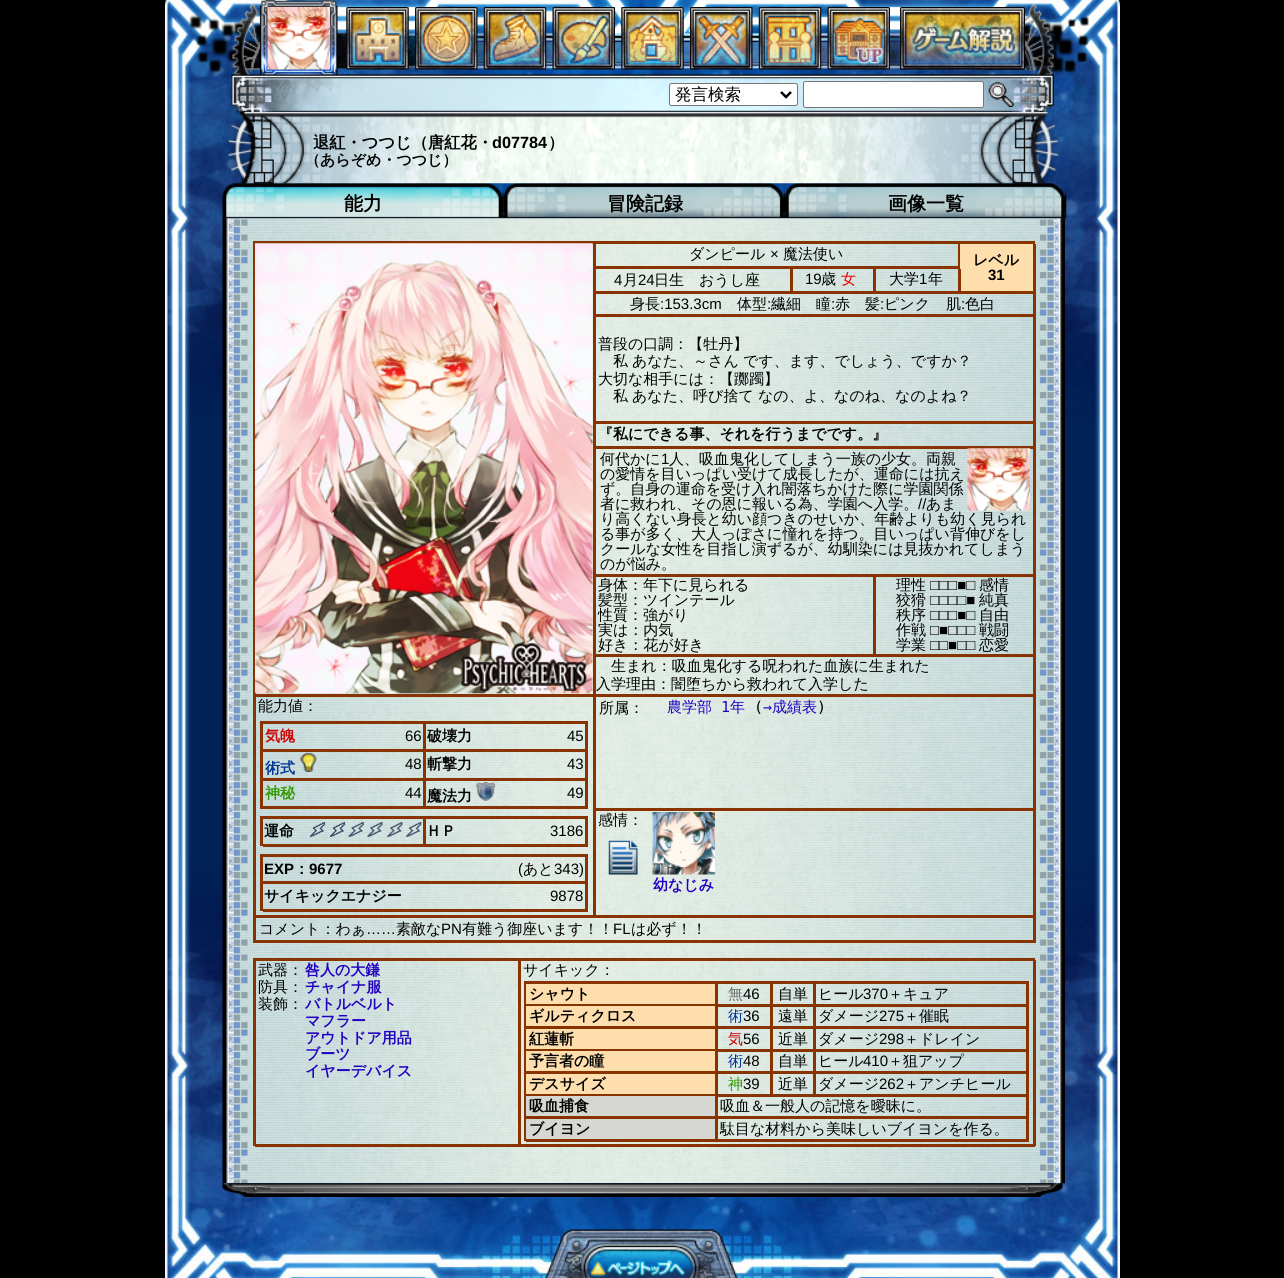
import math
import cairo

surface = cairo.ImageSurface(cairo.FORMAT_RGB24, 1284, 1278)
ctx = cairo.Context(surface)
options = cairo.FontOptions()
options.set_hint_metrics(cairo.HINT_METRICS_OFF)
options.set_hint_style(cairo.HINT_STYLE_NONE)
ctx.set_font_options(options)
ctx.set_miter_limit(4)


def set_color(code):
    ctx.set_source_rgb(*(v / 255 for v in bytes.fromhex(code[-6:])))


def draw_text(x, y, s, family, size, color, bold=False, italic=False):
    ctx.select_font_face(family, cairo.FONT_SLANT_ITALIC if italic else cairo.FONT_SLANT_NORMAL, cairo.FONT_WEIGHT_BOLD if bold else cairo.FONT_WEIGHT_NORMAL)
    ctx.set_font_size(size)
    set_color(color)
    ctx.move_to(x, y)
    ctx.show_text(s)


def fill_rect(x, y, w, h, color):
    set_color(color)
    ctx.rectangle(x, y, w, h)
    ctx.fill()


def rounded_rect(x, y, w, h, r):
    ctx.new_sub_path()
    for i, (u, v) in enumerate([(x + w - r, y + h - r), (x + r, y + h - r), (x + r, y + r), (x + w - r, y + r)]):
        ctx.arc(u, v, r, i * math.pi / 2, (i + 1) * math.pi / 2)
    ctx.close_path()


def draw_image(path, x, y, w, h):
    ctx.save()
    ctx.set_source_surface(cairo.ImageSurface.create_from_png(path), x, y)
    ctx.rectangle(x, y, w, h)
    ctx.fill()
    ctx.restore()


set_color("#000000")
ctx.paint()
draw_image("assets/img1.png", 165, 425, 955, 434)
draw_image("assets/img2.png", 165, 0, 955, 426)
draw_image("assets/img3.png", 267, 7, 63, 63)
draw_image("assets/img4.png", 346, 7, 63, 63)
draw_image("assets/img5.png", 415, 7, 63, 63)
draw_image("assets/img6.png", 483, 7, 64, 63)
draw_image("assets/img7.png", 552, 7, 63, 63)
draw_image("assets/img8.png", 621, 7, 63, 63)
draw_image("assets/img9.png", 690, 7, 63, 63)
draw_image("assets/img10.png", 758, 7, 64, 63)
draw_image("assets/img11.png", 827, 7, 63, 63)
draw_image("assets/img12.png", 900, 7, 125, 63)
draw_image("assets/img13.png", 231, 74, 823, 38)
set_color("#ffffff")
rounded_rect(669.5, 83.5, 128, 22, 2)
ctx.fill_preserve()
set_color("#767676")
ctx.set_line_width(1)
ctx.stroke()
ctx.new_path()
ctx.move_to(781, 92)
ctx.line_to(786, 97)
ctx.line_to(791, 92)
set_color("#000000")
ctx.set_line_width(2.5)
ctx.stroke()
draw_text(675, 100, "発言検索", "WenQuanYi Zen Hei Medium", 16.5, "#000000")
set_color("#ffffff")
rounded_rect(803.5, 81.5, 180, 26, 2)
ctx.fill_preserve()
set_color("#767676")
ctx.set_line_width(1)
ctx.stroke()
draw_image("assets/img14.png", 988, 82, 26, 25)
draw_image("assets/img16.png", 222, 183, 282, 36)
draw_image("assets/img17.png", 503, 183, 282, 36)
draw_image("assets/img18.png", 785, 183, 282, 36)
draw_image("assets/img15.png", 227, 112, 833, 72)
draw_text(313, 148, "退紅・つつじ（唐紅花・", "WenQuanYi Zen Hei", 16.25, "#000000", bold=True)
draw_text(492, 148, "d07784", "Liberation Sans", 16.25, "#000000", bold=True)
draw_text(548, 148, "）", "WenQuanYi Zen Hei", 16.25, "#000000", bold=True)
draw_text(305, 165, "（あらぞめ・つつじ）", "WenQuanYi Zen Hei", 15, "#000000", bold=True)
draw_text(344, 210, "能力", "WenQuanYi Zen Hei", 19, "#000000", bold=True)
draw_text(607, 210, "冒険記録", "WenQuanYi Zen Hei", 19, "#000000", bold=True)
draw_text(888, 210, "画像一覧", "WenQuanYi Zen Hei", 19, "#000000", bold=True)
draw_image("assets/img33.png", 165, 858, 955, 420)
draw_image("assets/img19.png", 222, 218, 843, 966)
fill_rect(253, 241, 782, 3, "#883300")
fill_rect(253, 241, 3, 702, "#883300")
fill_rect(593, 244, 3, 452, "#883300")
fill_rect(255, 694, 340, 3, "#883300")
draw_image("assets/img20.png", 255, 243, 338, 451)
fill_rect(958, 244, 2, 25, "#883300")
fill_rect(595, 266, 365, 3, "#883300")
draw_text(689, 259, "ダンピール", "WenQuanYi Zen Hei Medium", 15, "#000000")
draw_text(770, 259, "×", "Liberation Sans", 15, "#000000")
draw_text(783, 259, "魔法使い", "WenQuanYi Zen Hei Medium", 15, "#000000")
fill_rect(960, 244, 73, 47, "#ffdead")
fill_rect(1033, 244, 3, 72, "#883300")
fill_rect(960, 291, 75, 3, "#883300")
draw_text(973, 265, "レベル", "WenQuanYi Zen Hei", 15, "#000000", bold=True)
draw_text(988, 280, "31", "Liberation Sans", 15, "#000000", bold=True)
fill_rect(790, 269, 3, 25, "#883300")
fill_rect(595, 291, 198, 3, "#883300")
draw_text(614, 285, "4", "Liberation Sans", 15, "#000000")
draw_text(623, 285, "月", "WenQuanYi Zen Hei Medium", 15, "#000000")
draw_text(638, 285, "24", "Liberation Sans", 15, "#000000")
draw_text(654, 285, "日生　おうし座", "WenQuanYi Zen Hei Medium", 15, "#000000")
fill_rect(873, 269, 3, 25, "#883300")
fill_rect(793, 291, 82, 3, "#883300")
draw_text(805, 284, "19", "Liberation Sans", 15, "#000000")
draw_text(821, 284, "歳", "WenQuanYi Zen Hei Medium", 15, "#000000")
draw_text(841, 284, "女", "WenQuanYi Zen Hei Medium", 15, "#ea0000")
fill_rect(958, 269, 3, 25, "#883300")
fill_rect(875, 291, 85, 3, "#883300")
draw_text(889, 284, "大学", "WenQuanYi Zen Hei Medium", 15, "#000000")
draw_text(919, 284, "1", "Liberation Sans", 15, "#000000")
draw_text(928, 284, "年", "WenQuanYi Zen Hei Medium", 15, "#000000")
fill_rect(595, 314, 440, 3, "#883300")
draw_text(630, 309, "身長", "WenQuanYi Zen Hei Medium", 15, "#000000")
draw_text(660, 309, ":153.3cm", "Liberation Sans", 15, "#000000")
draw_text(737, 309, "体型", "WenQuanYi Zen Hei Medium", 15, "#000000")
draw_text(767, 309, ":", "Liberation Sans", 15, "#000000")
draw_text(771, 309, "繊細", "WenQuanYi Zen Hei Medium", 15, "#000000")
draw_text(816, 309, "瞳", "WenQuanYi Zen Hei Medium", 15, "#000000")
draw_text(831, 309, ":", "Liberation Sans", 15, "#000000")
draw_text(835, 309, "赤", "WenQuanYi Zen Hei Medium", 15, "#000000")
draw_text(865, 309, "髪", "WenQuanYi Zen Hei Medium", 15, "#000000")
draw_text(880, 309, ":", "Liberation Sans", 15, "#000000")
draw_text(884, 309, "ピンク", "WenQuanYi Zen Hei Medium", 15, "#000000")
draw_text(946, 309, "肌", "WenQuanYi Zen Hei Medium", 15, "#000000")
draw_text(961, 309, ":", "Liberation Sans", 15, "#000000")
draw_text(965, 309, "色白", "WenQuanYi Zen Hei Medium", 15, "#000000")
fill_rect(1033, 316, 3, 260, "#883300")
fill_rect(595, 421, 440, 3, "#883300")
draw_text(598, 349, "普段の口調：【牡丹】", "WenQuanYi Zen Hei Medium", 15, "#000000")
draw_text(613, 366, "私", "WenQuanYi Zen Hei Medium", 15, "#000000")
draw_text(632, 366, "あなた、～さん", "WenQuanYi Zen Hei Medium", 15, "#000000")
draw_text(743, 366, "です、ます、でしょう、ですか？", "WenQuanYi Zen Hei Medium", 15, "#000000")
draw_text(598, 384, "大切な相手には：【躑躅】", "WenQuanYi Zen Hei Medium", 15, "#000000")
draw_text(613, 401, "私", "WenQuanYi Zen Hei Medium", 15, "#000000")
draw_text(632, 401, "あなた、呼び捨て", "WenQuanYi Zen Hei Medium", 15, "#000000")
draw_text(758, 401, "なの、よ、なのね、なのよね？", "WenQuanYi Zen Hei Medium", 15, "#000000")
fill_rect(595, 446, 440, 3, "#883300")
draw_text(598, 439, "『私にできる事、それを行うまでです。』", "WenQuanYi Zen Hei", 15, "#000000", bold=True)
fill_rect(595, 574, 440, 3, "#883300")
draw_image("assets/img21.png", 967, 448, 63, 63)
draw_text(600, 464, "何代かに", "WenQuanYi Zen Hei Medium", 15, "#000000")
draw_text(661, 464, "1", "Liberation Sans", 15, "#000000")
draw_text(669, 464, "人、吸血鬼化してしまう一族の少女。両親", "WenQuanYi Zen Hei Medium", 15, "#000000")
draw_text(600, 479, "の愛情を目いっぱい受けて成長したが、運命には抗え", "WenQuanYi Zen Hei Medium", 15, "#000000")
draw_text(600, 494, "ず。自身の運命を受け入れ闇落ちかけた際に学園関係", "WenQuanYi Zen Hei Medium", 15, "#000000")
draw_text(600, 509, "者に救われ、その恩に報いる為、学園へ入学。", "WenQuanYi Zen Hei Medium", 15, "#000000")
draw_text(918, 509, "//", "Liberation Sans", 15, "#000000")
draw_text(926, 509, "あま", "WenQuanYi Zen Hei Medium", 15, "#000000")
draw_text(600, 524, "り高くない身長と幼い顔つきのせいか、年齢よりも幼く見られ", "WenQuanYi Zen Hei Medium", 15, "#000000")
draw_text(600, 539, "る事が多く、大人っぽさに憧れを持つ。目いっぱい背伸びをし", "WenQuanYi Zen Hei Medium", 15, "#000000")
draw_text(600, 554, "クールな女性を目指し演ずるが、幼馴染には見抜かれてしまう", "WenQuanYi Zen Hei Medium", 15, "#000000")
draw_text(600, 569, "のが悩み。", "WenQuanYi Zen Hei Medium", 15, "#000000")
fill_rect(873, 576, 3, 80, "#883300")
fill_rect(595, 654, 280, 3, "#883300")
draw_text(598, 590, "身体：年下に見られる", "WenQuanYi Zen Hei Medium", 15, "#000000")
draw_text(598, 605, "髪型：ツインテール", "WenQuanYi Zen Hei Medium", 15, "#000000")
draw_text(598, 620, "性質：強がり", "WenQuanYi Zen Hei Medium", 15, "#000000")
draw_text(598, 635, "実は：内気", "WenQuanYi Zen Hei Medium", 15, "#000000")
draw_text(598, 650, "好き：花が好き", "WenQuanYi Zen Hei Medium", 15, "#000000")
fill_rect(1033, 576, 3, 80, "#883300")
fill_rect(875, 654, 160, 3, "#883300")
draw_text(896, 590, "理性", "WenQuanYi Zen Hei Medium", 15, "#000000")
draw_text(930, 590, "□□□■□", "Liberation Sans", 15, "#000000")
draw_text(979, 590, "感情", "WenQuanYi Zen Hei Medium", 15, "#000000")
draw_text(896, 605, "狡猾", "WenQuanYi Zen Hei Medium", 15, "#000000")
draw_text(930, 605, "□□□□■", "Liberation Sans", 15, "#000000")
draw_text(979, 605, "純真", "WenQuanYi Zen Hei Medium", 15, "#000000")
draw_text(896, 620, "秩序", "WenQuanYi Zen Hei Medium", 15, "#000000")
draw_text(930, 620, "□□□■□", "Liberation Sans", 15, "#000000")
draw_text(979, 620, "自由", "WenQuanYi Zen Hei Medium", 15, "#000000")
draw_text(896, 635, "作戦", "WenQuanYi Zen Hei Medium", 15, "#000000")
draw_text(930, 635, "□■□□□", "Liberation Sans", 15, "#000000")
draw_text(979, 635, "戦闘", "WenQuanYi Zen Hei Medium", 15, "#000000")
draw_text(896, 650, "学業", "WenQuanYi Zen Hei Medium", 15, "#000000")
draw_text(930, 650, "□□■□□", "Liberation Sans", 15, "#000000")
draw_text(979, 650, "恋愛", "WenQuanYi Zen Hei Medium", 15, "#000000")
fill_rect(1033, 656, 3, 40, "#883300")
fill_rect(595, 694, 440, 3, "#883300")
draw_text(611, 671, "生まれ：吸血鬼化する呪われた血族に生まれた", "WenQuanYi Zen Hei Medium", 15, "#000000")
draw_text(596, 689, "入学理由：闇堕ちから救われて入学した", "WenQuanYi Zen Hei Medium", 15, "#000000")
fill_rect(593, 696, 3, 222, "#883300")
fill_rect(255, 915, 340, 3, "#883300")
draw_text(258, 711, "能力値：", "WenQuanYi Zen Hei Medium", 15, "#000000")
fill_rect(260, 721, 328, 3, "#883300")
fill_rect(260, 721, 3, 88, "#883300")
fill_rect(263, 749, 127, 3, "#883300")
draw_text(265, 741, "気魄", "WenQuanYi Zen Hei", 15, "#cc0000", bold=True)
fill_rect(423, 724, 3, 27, "#883300")
fill_rect(390, 749, 163, 3, "#883300")
draw_text(405, 741, "66", "Liberation Sans", 15, "#000000")
draw_text(427, 741, "破壊力", "WenQuanYi Zen Hei", 15, "#000000", bold=True)
fill_rect(585, 724, 3, 27, "#883300")
fill_rect(553, 749, 35, 3, "#883300")
draw_text(567, 741, "45", "Liberation Sans", 15, "#000000")
fill_rect(263, 778, 127, 3, "#883300")
draw_text(265, 773, "術式", "WenQuanYi Zen Hei", 15, "#003399", bold=True)
draw_image("assets/img22.png", 300, 753, 17, 19)
fill_rect(423, 751, 3, 29, "#883300")
fill_rect(390, 778, 163, 3, "#883300")
draw_text(405, 769, "48", "Liberation Sans", 15, "#000000")
draw_text(427, 769, "斬撃力", "WenQuanYi Zen Hei", 15, "#000000", bold=True)
fill_rect(585, 751, 3, 29, "#883300")
fill_rect(553, 778, 35, 3, "#883300")
draw_text(567, 769, "43", "Liberation Sans", 15, "#000000")
fill_rect(263, 806, 127, 3, "#883300")
draw_text(265, 798, "神秘", "WenQuanYi Zen Hei", 15, "#339900", bold=True)
fill_rect(423, 780, 3, 29, "#883300")
fill_rect(390, 806, 163, 3, "#883300")
draw_text(405, 798, "44", "Liberation Sans", 15, "#000000")
draw_text(427, 801, "魔法力", "WenQuanYi Zen Hei", 15, "#000000", bold=True)
draw_image("assets/img23.png", 476, 782, 19, 19)
fill_rect(585, 780, 3, 29, "#883300")
fill_rect(553, 806, 35, 3, "#883300")
draw_text(567, 798, "49", "Liberation Sans", 15, "#000000")
fill_rect(260, 816, 328, 3, "#883300")
fill_rect(260, 816, 3, 30, "#883300")
fill_rect(263, 844, 38, 3, "#883300")
draw_text(264, 836, "運命", "WenQuanYi Zen Hei", 15, "#000000", bold=True)
fill_rect(423, 819, 3, 27, "#883300")
fill_rect(301, 844, 183, 3, "#883300")
draw_image("assets/img24.png", 310, 822, 15, 15)
draw_image("assets/img25.png", 330, 822, 15, 15)
draw_image("assets/img26.png", 348, 822, 16, 15)
draw_image("assets/img27.png", 367, 822, 16, 15)
draw_image("assets/img28.png", 387, 822, 16, 15)
draw_image("assets/img29.png", 406, 822, 16, 15)
draw_text(426, 836, "ＨＰ", "WenQuanYi Zen Hei", 15, "#000000", bold=True)
fill_rect(585, 819, 3, 27, "#883300")
fill_rect(484, 844, 104, 3, "#883300")
draw_text(550, 836, "3186", "Liberation Sans", 15, "#000000")
fill_rect(260, 854, 328, 3, "#883300")
fill_rect(260, 854, 3, 57, "#883300")
fill_rect(263, 881, 195, 3, "#883300")
draw_text(264, 874, "EXP", "Liberation Sans", 15, "#000000", bold=True)
draw_text(294, 874, "：", "WenQuanYi Zen Hei", 15, "#000000", bold=True)
draw_text(309, 874, "9677", "Liberation Sans", 15, "#000000", bold=True)
fill_rect(585, 856, 3, 55, "#883300")
fill_rect(458, 881, 130, 3, "#883300")
draw_text(518, 874, "(", "Liberation Sans", 15, "#000000")
draw_text(523, 874, "あと", "WenQuanYi Zen Hei Medium", 15, "#000000")
draw_text(554, 874, "343)", "Liberation Sans", 15, "#000000")
fill_rect(263, 909, 325, 3, "#883300")
draw_text(264, 901, "サイキックエナジー", "WenQuanYi Zen Hei", 15, "#000000", bold=True)
draw_text(550, 901, "9878", "Liberation Sans", 15, "#000000")
fill_rect(1033, 696, 3, 114, "#883300")
fill_rect(595, 808, 440, 3, "#883300")
draw_text(599, 713, "所属：", "WenQuanYi Zen Hei Medium", 15, "#000000")
draw_text(667, 712, "農学部", "WenQuanYi Zen Hei Medium", 15, "#2200c1")
draw_text(721, 712, "1", "DejaVu Sans Mono", 15, "#2200c1")
draw_text(730, 712, "年", "WenQuanYi Zen Hei Medium", 15, "#2200c1")
draw_text(754, 712, "(", "DejaVu Sans Mono", 15, "#000000")
draw_text(763, 712, "→", "DejaVu Sans Mono", 15, "#2200c1")
draw_text(772, 712, "成績表", "WenQuanYi Zen Hei Medium", 15, "#2200c1")
draw_text(817, 712, ")", "DejaVu Sans Mono", 15, "#000000")
fill_rect(1033, 810, 3, 133, "#883300")
fill_rect(595, 915, 440, 3, "#883300")
draw_text(598, 825, "感情：", "WenQuanYi Zen Hei Medium", 15, "#000000")
draw_image("assets/img30.png", 608, 840, 30, 35)
draw_image("assets/img31.png", 652, 812, 63, 63)
draw_text(653, 890, "幼なじみ", "WenQuanYi Zen Hei", 15, "#2200c1", bold=True)
fill_rect(255, 940, 780, 3, "#883300")
draw_text(259, 934, "コメント：わぁ", "WenQuanYi Zen Hei Medium", 15, "#000000")
draw_text(366, 934, "……", "Liberation Sans", 15, "#000000")
draw_text(396, 934, "素敵な", "WenQuanYi Zen Hei Medium", 15, "#000000")
draw_text(441, 934, "PN", "Liberation Sans", 15, "#000000")
draw_text(462, 934, "有難う御座います！！", "WenQuanYi Zen Hei Medium", 15, "#000000")
draw_text(613, 934, "FL", "Liberation Sans", 15, "#000000")
draw_text(631, 934, "は必ず！！", "WenQuanYi Zen Hei Medium", 15, "#000000")
fill_rect(253, 958, 782, 3, "#883300")
fill_rect(253, 958, 3, 188, "#883300")
fill_rect(518, 960, 3, 186, "#883300")
fill_rect(255, 1144, 265, 3, "#883300")
draw_text(258, 975, "武器：", "WenQuanYi Zen Hei Medium", 15, "#000000")
draw_text(305, 975, "咎人の大鎌", "WenQuanYi Zen Hei", 15, "#2200c1", bold=True)
draw_text(258, 992, "防具：", "WenQuanYi Zen Hei Medium", 15, "#000000")
draw_text(305, 992, "チャイナ服", "WenQuanYi Zen Hei", 15, "#2200c1", bold=True)
draw_text(258, 1009, "装飾：", "WenQuanYi Zen Hei Medium", 15, "#000000")
draw_text(305, 1009, "バトルベルト", "WenQuanYi Zen Hei", 15, "#2200c1", bold=True)
draw_text(305, 1026, "マフラー", "WenQuanYi Zen Hei", 15, "#2200c1", bold=True)
draw_text(305, 1043, "アウトドア用品", "WenQuanYi Zen Hei", 15, "#2200c1", bold=True)
draw_text(305, 1059, "ブーツ", "WenQuanYi Zen Hei", 15, "#2200c1", bold=True)
draw_text(305, 1076, "イヤーデバイス", "WenQuanYi Zen Hei", 15, "#2200c1", bold=True)
fill_rect(1033, 960, 3, 186, "#883300")
fill_rect(520, 1144, 515, 3, "#883300")
draw_text(523, 975, "サイキック：", "WenQuanYi Zen Hei Medium", 15, "#000000")
fill_rect(524, 981, 505, 3, "#883300")
fill_rect(524, 981, 3, 160, "#883300")
fill_rect(526, 984, 189, 20, "#ffdead")
fill_rect(715, 984, 3, 157, "#883300")
fill_rect(526, 1004, 192, 2, "#883300")
draw_text(529, 999, "シャウト", "WenQuanYi Zen Hei", 15, "#000000", bold=True)
fill_rect(770, 984, 3, 22, "#883300")
fill_rect(718, 1004, 55, 3, "#883300")
draw_text(728, 999, "無", "WenQuanYi Zen Hei Medium", 15, "#696969")
draw_text(743, 999, "46", "Liberation Sans", 15, "#000000")
fill_rect(813, 984, 3, 22, "#883300")
fill_rect(773, 1004, 42, 3, "#883300")
draw_text(778, 999, "自単", "WenQuanYi Zen Hei Medium", 15, "#000000")
fill_rect(1026, 984, 3, 22, "#883300")
fill_rect(815, 1004, 214, 3, "#883300")
draw_text(818, 999, "ヒール", "WenQuanYi Zen Hei Medium", 15, "#000000")
draw_text(863, 999, "370", "Liberation Sans", 15, "#000000")
draw_text(888, 999, "＋キュア", "WenQuanYi Zen Hei Medium", 15, "#000000")
fill_rect(526, 1006, 189, 20, "#ffdead")
fill_rect(526, 1026, 192, 3, "#883300")
draw_text(529, 1021, "ギルティクロス", "WenQuanYi Zen Hei", 15, "#000000", bold=True)
fill_rect(770, 1006, 3, 45, "#883300")
fill_rect(718, 1026, 55, 3, "#883300")
draw_text(728, 1021, "術", "WenQuanYi Zen Hei Medium", 15, "#003399")
draw_text(743, 1021, "36", "Liberation Sans", 15, "#000000")
fill_rect(813, 1006, 3, 45, "#883300")
fill_rect(773, 1026, 42, 3, "#883300")
draw_text(778, 1021, "遠単", "WenQuanYi Zen Hei Medium", 15, "#000000")
fill_rect(1026, 1006, 3, 45, "#883300")
fill_rect(815, 1026, 214, 3, "#883300")
draw_text(818, 1021, "ダメージ", "WenQuanYi Zen Hei Medium", 15, "#000000")
draw_text(879, 1021, "275", "Liberation Sans", 15, "#000000")
draw_text(904, 1021, "＋催眠", "WenQuanYi Zen Hei Medium", 15, "#000000")
fill_rect(526, 1029, 189, 20, "#ffdead")
fill_rect(526, 1049, 192, 2, "#883300")
draw_text(529, 1044, "紅蓮斬", "WenQuanYi Zen Hei", 15, "#000000", bold=True)
fill_rect(718, 1049, 311, 3, "#883300")
draw_text(728, 1044, "気", "WenQuanYi Zen Hei Medium", 15, "#cc0000")
draw_text(743, 1044, "56", "Liberation Sans", 15, "#000000")
draw_text(778, 1044, "近単", "WenQuanYi Zen Hei Medium", 15, "#000000")
draw_text(818, 1044, "ダメージ", "WenQuanYi Zen Hei Medium", 15, "#000000")
draw_text(879, 1044, "298", "Liberation Sans", 15, "#000000")
draw_text(904, 1044, "＋ドレイン", "WenQuanYi Zen Hei Medium", 15, "#000000")
fill_rect(526, 1051, 189, 20, "#ffdead")
fill_rect(526, 1071, 192, 3, "#883300")
draw_text(529, 1066, "予言者の瞳", "WenQuanYi Zen Hei", 15, "#000000", bold=True)
fill_rect(770, 1051, 3, 45, "#883300")
fill_rect(718, 1071, 55, 3, "#883300")
draw_text(728, 1066, "術", "WenQuanYi Zen Hei Medium", 15, "#003399")
draw_text(743, 1066, "48", "Liberation Sans", 15, "#000000")
fill_rect(813, 1051, 3, 45, "#883300")
fill_rect(773, 1071, 42, 3, "#883300")
draw_text(778, 1066, "自単", "WenQuanYi Zen Hei Medium", 15, "#000000")
fill_rect(1026, 1051, 3, 45, "#883300")
fill_rect(815, 1071, 214, 3, "#883300")
draw_text(818, 1066, "ヒール", "WenQuanYi Zen Hei Medium", 15, "#000000")
draw_text(863, 1066, "410", "Liberation Sans", 15, "#000000")
draw_text(888, 1066, "＋狙アップ", "WenQuanYi Zen Hei Medium", 15, "#000000")
fill_rect(526, 1074, 189, 20, "#ffdead")
fill_rect(526, 1094, 192, 2, "#883300")
draw_text(529, 1089, "デスサイズ", "WenQuanYi Zen Hei", 15, "#000000", bold=True)
fill_rect(718, 1094, 311, 3, "#883300")
draw_text(728, 1089, "神", "WenQuanYi Zen Hei Medium", 15, "#339900")
draw_text(743, 1089, "39", "Liberation Sans", 15, "#000000")
draw_text(778, 1089, "近単", "WenQuanYi Zen Hei Medium", 15, "#000000")
draw_text(818, 1089, "ダメージ", "WenQuanYi Zen Hei Medium", 15, "#000000")
draw_text(879, 1089, "262", "Liberation Sans", 15, "#000000")
draw_text(904, 1089, "＋アンチヒール", "WenQuanYi Zen Hei Medium", 15, "#000000")
fill_rect(526, 1096, 189, 20, "#d6d7d3")
fill_rect(526, 1116, 192, 3, "#883300")
draw_text(529, 1111, "吸血捕食", "WenQuanYi Zen Hei", 15, "#000000", bold=True)
fill_rect(1026, 1096, 3, 45, "#883300")
fill_rect(718, 1116, 311, 3, "#883300")
draw_text(720, 1111, "吸血＆一般人の記憶を曖昧に。", "WenQuanYi Zen Hei Medium", 15, "#000000")
fill_rect(526, 1119, 189, 20, "#d6d7d3")
fill_rect(526, 1139, 503, 3, "#883300")
draw_text(529, 1134, "ブイヨン", "WenQuanYi Zen Hei", 15, "#000000", bold=True)
draw_text(720, 1134, "駄目な材料から美味しいブイヨンを作る。", "WenQuanYi Zen Hei Medium", 15, "#000000")
draw_image("assets/img32.png", 222, 1183, 841, 14)
draw_image("assets/img34.png", 583, 1245, 114, 33)
surface.write_to_png("output.png")
